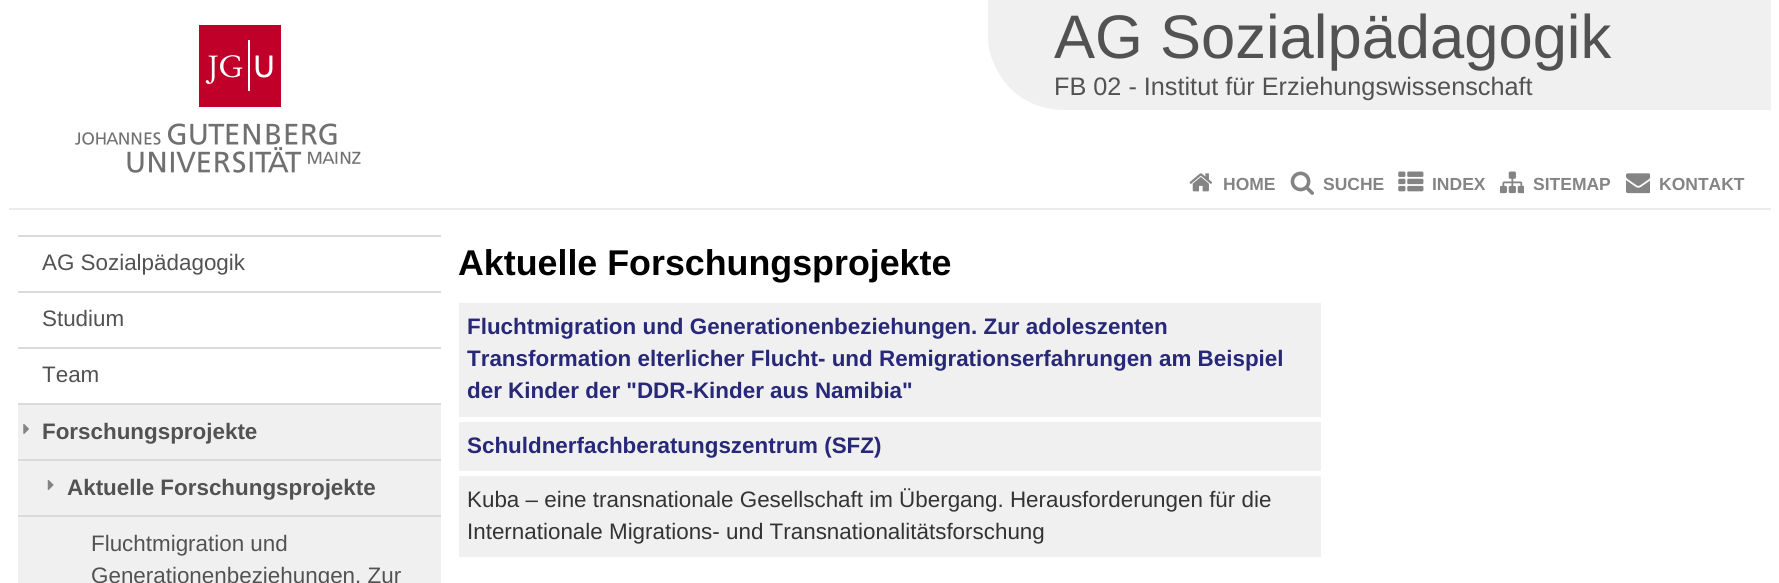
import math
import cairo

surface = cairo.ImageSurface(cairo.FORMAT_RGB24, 1779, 583)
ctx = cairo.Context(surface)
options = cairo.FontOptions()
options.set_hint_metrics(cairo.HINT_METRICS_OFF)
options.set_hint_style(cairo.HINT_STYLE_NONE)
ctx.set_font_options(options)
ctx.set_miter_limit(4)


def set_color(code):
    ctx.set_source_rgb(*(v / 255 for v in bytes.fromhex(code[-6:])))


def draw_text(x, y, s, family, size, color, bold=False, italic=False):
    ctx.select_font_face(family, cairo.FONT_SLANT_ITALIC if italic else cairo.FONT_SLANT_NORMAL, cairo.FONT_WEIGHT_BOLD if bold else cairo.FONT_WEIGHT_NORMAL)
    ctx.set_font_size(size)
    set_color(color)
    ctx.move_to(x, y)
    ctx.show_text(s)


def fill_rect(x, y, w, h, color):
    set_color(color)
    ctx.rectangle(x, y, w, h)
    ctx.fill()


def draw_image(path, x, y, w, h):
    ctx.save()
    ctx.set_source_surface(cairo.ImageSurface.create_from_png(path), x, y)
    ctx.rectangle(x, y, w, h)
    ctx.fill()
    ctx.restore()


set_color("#ffffff")
ctx.paint()
draw_image("assets/img1.png", 75, 25, 286, 148)
ctx.save()
ctx.rectangle(984, 0, 787, 158)
ctx.clip()
set_color("#f0f0f0")
ctx.new_path()
ctx.move_to(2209, 110)
ctx.line_to(1060, 110)
ctx.curve_to(1002, 106, 988, 54, 988, 40)
ctx.line_to(988, 0)
ctx.line_to(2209, 0)
ctx.close_path()
ctx.fill()
ctx.restore()
draw_text(1054, 58, "AG Sozialpädagogik", "Liberation Sans", 61.5, "#525252")
draw_text(1054, 95, "FB 02 - Institut für Erziehungswissenschaft", "Liberation Sans", 25.25, "#525252")
draw_image("assets/img2.png", 1189, 173, 24, 19)
draw_text(1223, 190, "HOME", "Liberation Sans", 17.5, "#848484", bold=True)
draw_image("assets/img3.png", 1290, 171, 24, 24)
draw_text(1323, 190, "SUCHE", "Liberation Sans", 17.5, "#848484", bold=True)
draw_image("assets/img4.png", 1398, 171, 26, 21)
draw_text(1432, 190, "INDEX", "Liberation Sans", 17.5, "#848484", bold=True)
draw_image("assets/img5.png", 1500, 171, 24, 23)
draw_text(1533, 190, "SITEMAP", "Liberation Sans", 17.5, "#848484", bold=True)
draw_image("assets/img6.png", 1626, 173, 24, 21)
draw_text(1659, 190, "KONTAKT", "Liberation Sans", 17.5, "#848484", bold=True)
fill_rect(9, 208, 1762, 2, "#ebebeb")
fill_rect(18, 235, 423, 2, "#dadada")
draw_text(42, 270, "AG Sozialpädagogik", "Liberation Sans", 22.4, "#525252")
fill_rect(18, 291, 423, 2, "#dadada")
draw_text(42, 326, "Studium", "Liberation Sans", 22.4, "#525252")
fill_rect(18, 347, 423, 2, "#dadada")
draw_text(42, 382, "Team", "Liberation Sans", 22.4, "#525252")
fill_rect(18, 405, 423, 178, "#f0f0f0")
fill_rect(18, 403, 423, 2, "#dadada")
draw_image("assets/img7.png", 23, 423, 6, 11)
draw_text(42, 439, "Forschungsprojekte", "Liberation Sans", 22.4, "#525252", bold=True)
fill_rect(18, 459, 423, 2, "#dadada")
draw_image("assets/img8.png", 47, 479, 7, 11)
draw_text(67, 495, "Aktuelle Forschungsprojekte", "Liberation Sans", 22.4, "#525252", bold=True)
fill_rect(18, 515, 423, 2, "#dadada")
draw_text(91, 551, "Fluchtmigration und", "Liberation Sans", 22.4, "#525252")
draw_text(91, 583, "Generationenbeziehungen. Zur", "Liberation Sans", 22.4, "#525252")
draw_text(458, 275, "Aktuelle Forschungsprojekte", "Liberation Sans", 35.8, "#000000", bold=True)
fill_rect(459, 303, 862, 114, "#f0f0f0")
draw_text(467, 334, "Fluchtmigration und Generationenbeziehungen. Zur adoleszenten", "Liberation Sans", 22.4, "#282879", bold=True)
draw_text(467, 366, "Transformation elterlicher Flucht- und Remigrationserfahrungen am Beispiel", "Liberation Sans", 22.4, "#282879", bold=True)
draw_text(467, 398, "der Kinder der \"DDR-Kinder aus Namibia\"", "Liberation Sans", 22.4, "#282879", bold=True)
fill_rect(459, 422, 862, 49, "#f0f0f0")
draw_text(467, 453, "Schuldnerfachberatungszentrum (SFZ)", "Liberation Sans", 22.4, "#282879", bold=True)
fill_rect(459, 476, 862, 81, "#f0f0f0")
draw_text(467, 507, "Kuba – eine transnationale Gesellschaft im Übergang. Herausforderungen für die", "Liberation Sans", 22.4, "#333333")
draw_text(467, 539, "Internationale Migrations- und Transnationalitätsforschung", "Liberation Sans", 22.4, "#333333")
surface.write_to_png("output.png")
